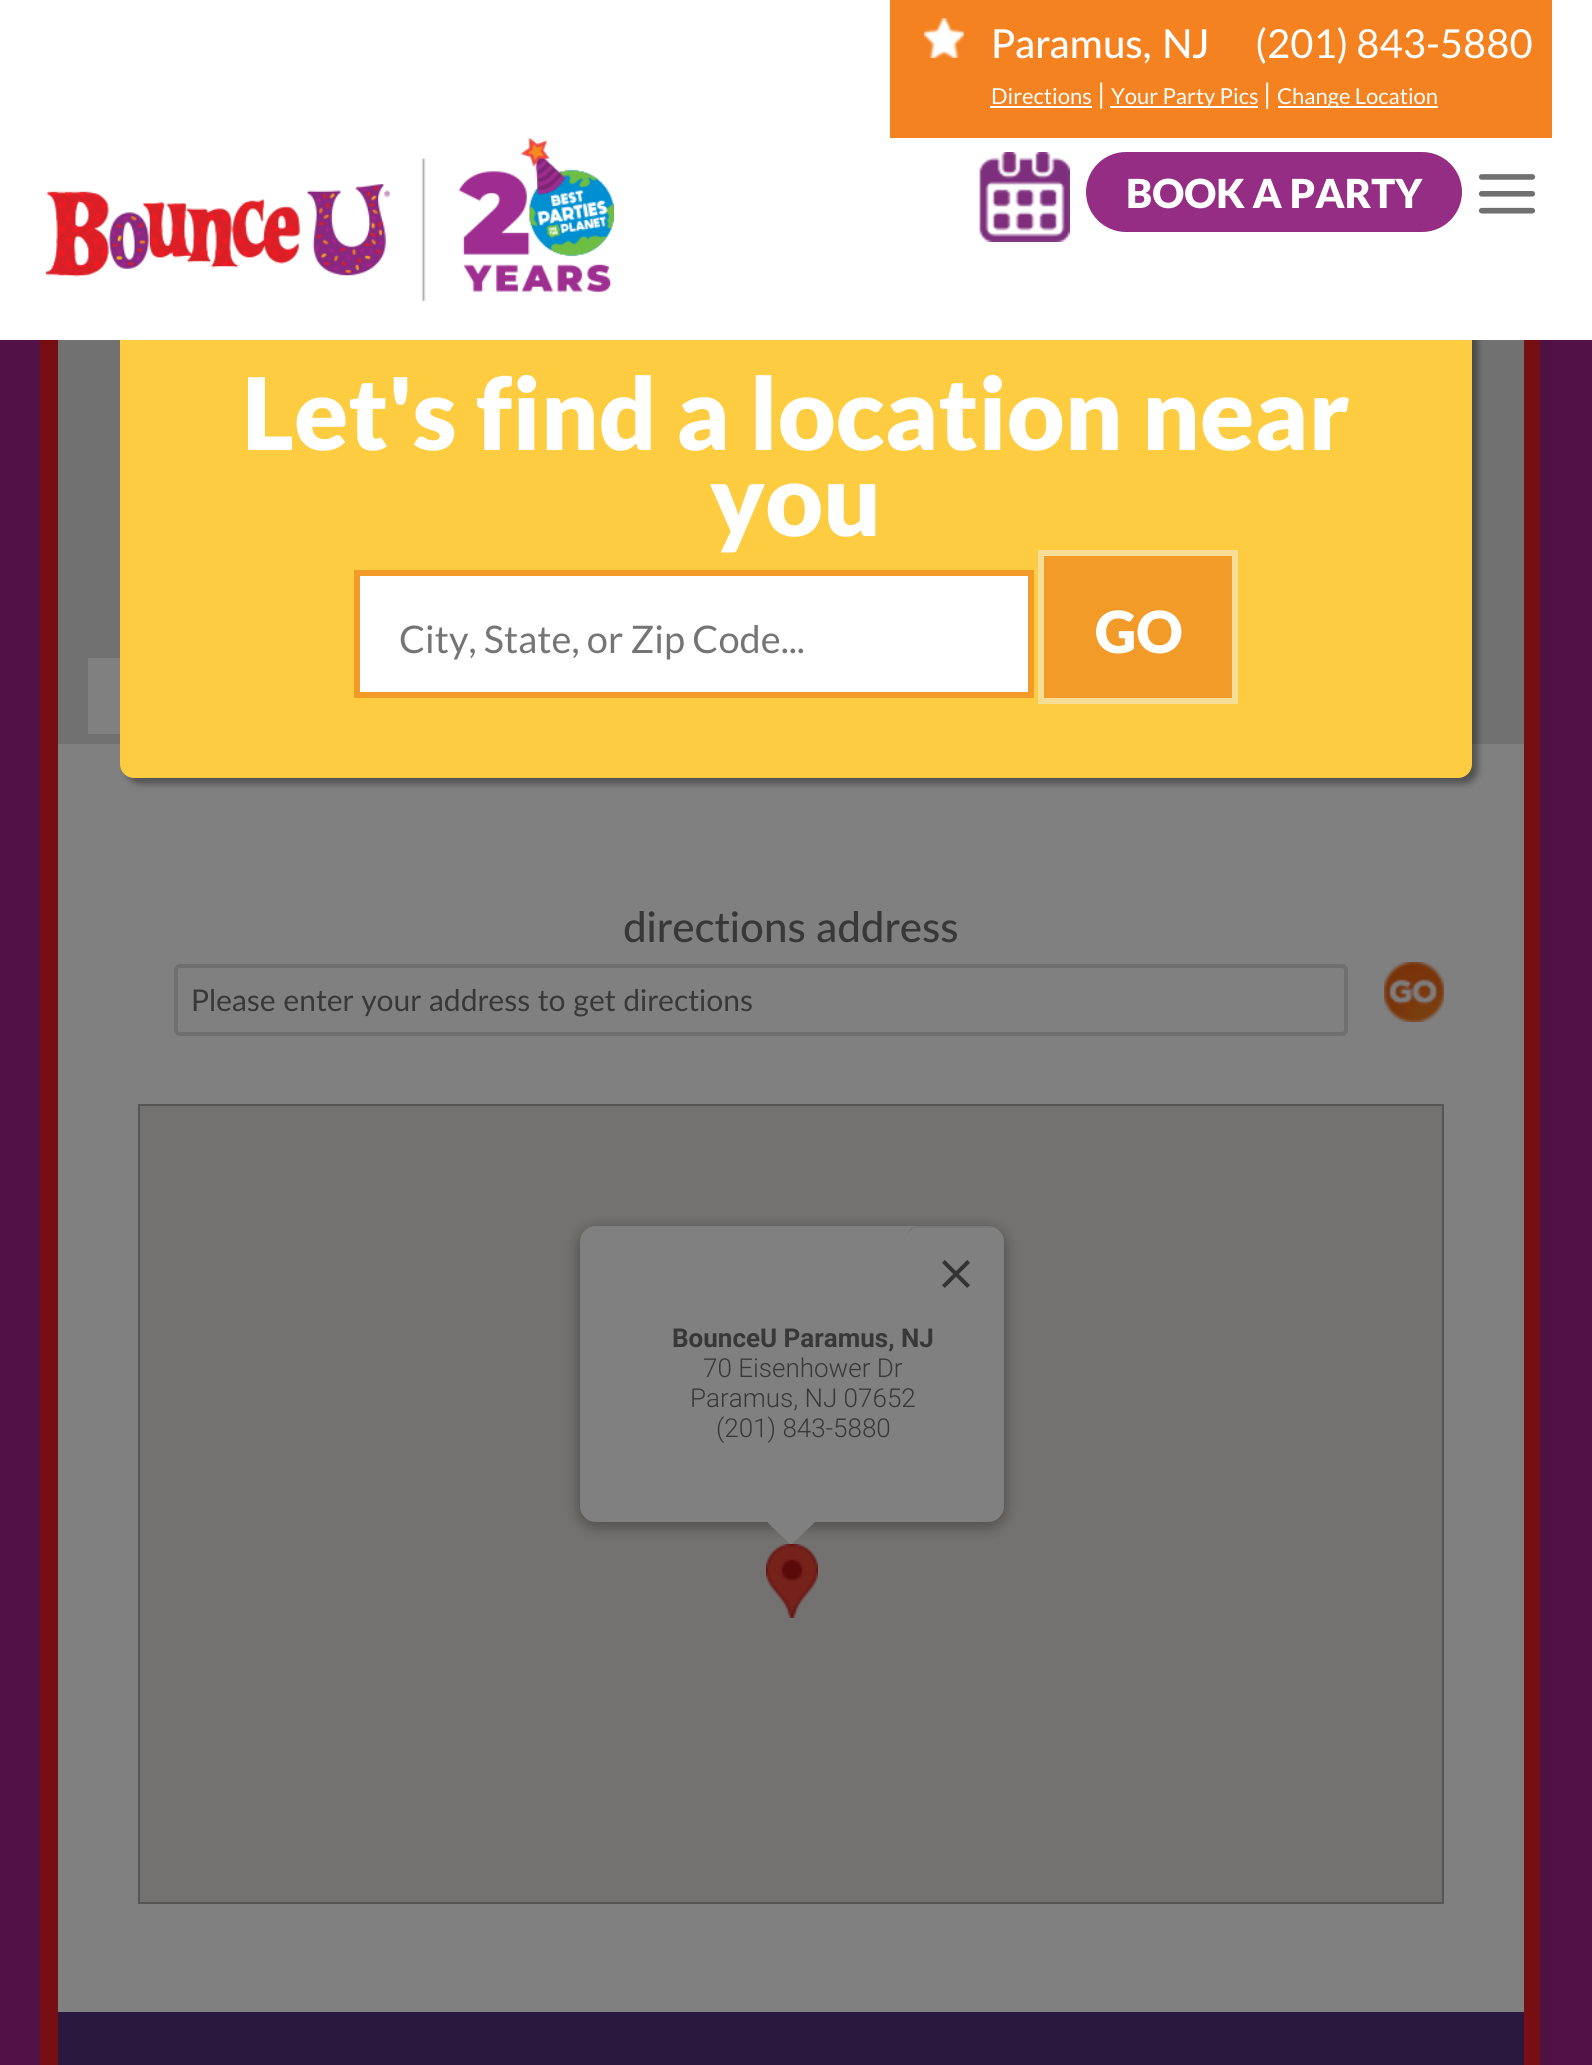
import math
import cairo

surface = cairo.ImageSurface(cairo.FORMAT_RGB24, 1592, 2065)
ctx = cairo.Context(surface)
options = cairo.FontOptions()
options.set_hint_metrics(cairo.HINT_METRICS_OFF)
options.set_hint_style(cairo.HINT_STYLE_NONE)
ctx.set_font_options(options)
ctx.set_miter_limit(4)


def set_color(code):
    ctx.set_source_rgb(*(v / 255 for v in bytes.fromhex(code[-6:])))


def draw_text(x, y, s, family, size, color, bold=False, italic=False):
    ctx.select_font_face(family, cairo.FONT_SLANT_ITALIC if italic else cairo.FONT_SLANT_NORMAL, cairo.FONT_WEIGHT_BOLD if bold else cairo.FONT_WEIGHT_NORMAL)
    ctx.set_font_size(size)
    set_color(color)
    ctx.move_to(x, y)
    ctx.show_text(s)


def fill_rect(x, y, w, h, color):
    set_color(color)
    ctx.rectangle(x, y, w, h)
    ctx.fill()


def rounded_rect(x, y, w, h, r):
    ctx.new_sub_path()
    for i, (u, v) in enumerate([(x + w - r, y + h - r), (x + r, y + h - r), (x + r, y + r), (x + w - r, y + r)]):
        ctx.arc(u, v, r, i * math.pi / 2, (i + 1) * math.pi / 2)
    ctx.close_path()


def draw_shadow(x, y, w, h, r, blur, alpha):
    ctx.push_group_with_content(cairo.CONTENT_ALPHA)
    ctx.set_operator(cairo.OPERATOR_SOURCE)
    for i in range(15, -16, -2):
        e = blur * i / 6
        if min(w, h) + 2 * e > 0:
            ctx.set_source_rgba(0, 0, 0, alpha * math.erfc((i - 1) / 8.5) / 2)
            rounded_rect(x - e, y - e, w + 2 * e, h + 2 * e, max(0, min(r + e + blur * .6, min(w, h) / 2 + e)))
            ctx.fill()
    ctx.mask(ctx.pop_group())


def draw_image(path, x, y, w, h):
    ctx.save()
    ctx.set_source_surface(cairo.ImageSurface.create_from_png(path), x, y)
    ctx.rectangle(x, y, w, h)
    ctx.fill()
    ctx.restore()


set_color("#521247")
ctx.paint()
fill_rect(58, 744, 1466, 1268, "#808080")
fill_rect(58, 340, 1466, 404, "#717171")
fill_rect(88, 658, 32, 76, "#808080")
set_color("#000000")
draw_shadow(126, 324, 1352, 460, 14, 3, 0.35)
set_color("#fdcc40")
rounded_rect(120, 318, 1352, 460, 14)
ctx.fill()
fill_rect(0, 0, 1592, 340, "#ffffff")
fill_rect(890, 0, 662, 138, "#f58220")
draw_image("assets/img1.png", 924, 18, 40, 40)
draw_text(991, 58, "Paramus, NJ", "Lato Medium", 40, "#ffffff")
draw_text(1255, 58, "(201) 843-5880", "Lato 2", 40, "#ffffff")
draw_text(991, 104, "Directions", "Lato 2", 22, "#ffffff")
fill_rect(990, 106, 102, 2, "#ffffff")
draw_text(1097, 104, "|", "Lato 2", 28, "#ffffff")
fill_rect(1110, 106, 148, 2, "#ffffff")
draw_text(1111, 104, "Your Party Pics", "Lato 2", 22, "#ffffff")
draw_text(1263, 104, "|", "Lato 2", 28, "#ffffff")
fill_rect(1278, 106, 160, 2, "#ffffff")
draw_text(1277, 104, "Change Location", "Lato 2", 22, "#ffffff")
draw_image("assets/img2.png", 46, 138, 568, 163)
draw_image("assets/img3.png", 979, 152, 91, 90)
set_color("#942d83")
rounded_rect(1086, 152, 376, 80, 40)
ctx.fill()
draw_text(1126, 208, "BOOK A PARTY", "Lato Black", 40, "#ffffff")
draw_image("assets/img4.png", 1478, 174, 58, 40)
draw_text(242, 450, "Let's find a location near", "Lato Black", 100, "#ffffff")
draw_text(710, 536, "you", "Lato Black", 100, "#ffffff")
ctx.rectangle(357, 573, 674, 122)
ctx.fill_preserve()
set_color("#f39b28")
ctx.set_line_width(6)
ctx.stroke()
draw_text(399, 653, "City, State, or Zip Code...", "Lato 2", 38, "#757575")
set_color("#f39b28")
ctx.rectangle(1041, 553, 194, 148)
ctx.fill_preserve()
set_color("#f8dd96")
ctx.stroke()
draw_text(1095, 653, "GO", "Lato Black", 58, "#ffffff")
draw_image("assets/img5.png", 40, 340, 18, 1672)
draw_image("assets/img6.png", 1524, 340, 27, 1672)
draw_text(623, 942, "directions address", "Lato Medium", 42, "#383838")
rounded_rect(176, 966, 1170, 68, 4)
set_color("#6f6f6f")
ctx.set_line_width(4)
ctx.stroke()
draw_text(191, 1011, "Please enter your address to get directions", "Lato", 30, "#383838")
draw_image("assets/img7.png", 1384, 962, 60, 60)
ctx.rectangle(139, 1105, 1304, 798)
set_color("#555555")
ctx.set_line_width(2)
ctx.stroke()
fill_rect(140, 1106, 1302, 796, "#737270")
draw_image("assets/img9.png", 766, 1544, 52, 74)
set_color("#000000")
draw_shadow(578, 1228, 428, 300, 18, 7, 0.3)
set_color("#808080")
rounded_rect(580, 1226, 424, 296, 16)
ctx.fill()
ctx.set_source_rgba(0, 0, 0, 0.06)
ctx.new_path()
ctx.move_to(916, 1228)
ctx.line_to(996, 1228)
ctx.curve_to(993, 1227, 991, 1226, 988, 1226)
ctx.line_to(916, 1226)
ctx.curve_to(912, 1226, 908, 1230, 908, 1234)
ctx.line_to(908, 1236)
ctx.curve_to(908, 1232, 912, 1228, 916, 1228)
ctx.close_path()
ctx.fill()
draw_image("assets/img8.png", 942, 1260, 28, 28)
draw_text(672, 1347, "BounceU Paramus, NJ", "Roboto", 26, "#383838", bold=True)
draw_text(703, 1377, "70 Eisenhower Dr", "Roboto Light", 26, "#383838")
draw_text(690, 1407, "Paramus, NJ 07652", "Roboto Light", 26, "#383838")
draw_text(716, 1437, "(201) 843-5880", "Roboto Light", 26, "#383838")
set_color("#808080")
ctx.new_path()
ctx.move_to(768, 1523)
ctx.line_to(768, 1521)
ctx.line_to(816, 1521)
ctx.line_to(792, 1544)
ctx.line_to(790, 1544)
ctx.close_path()
ctx.fill()
draw_image("assets/img10.png", 40, 2012, 18, 53)
draw_image("assets/img11.png", 1524, 2012, 27, 53)
fill_rect(58, 2012, 1466, 53, "#2b183f")
surface.write_to_png("output.png")
